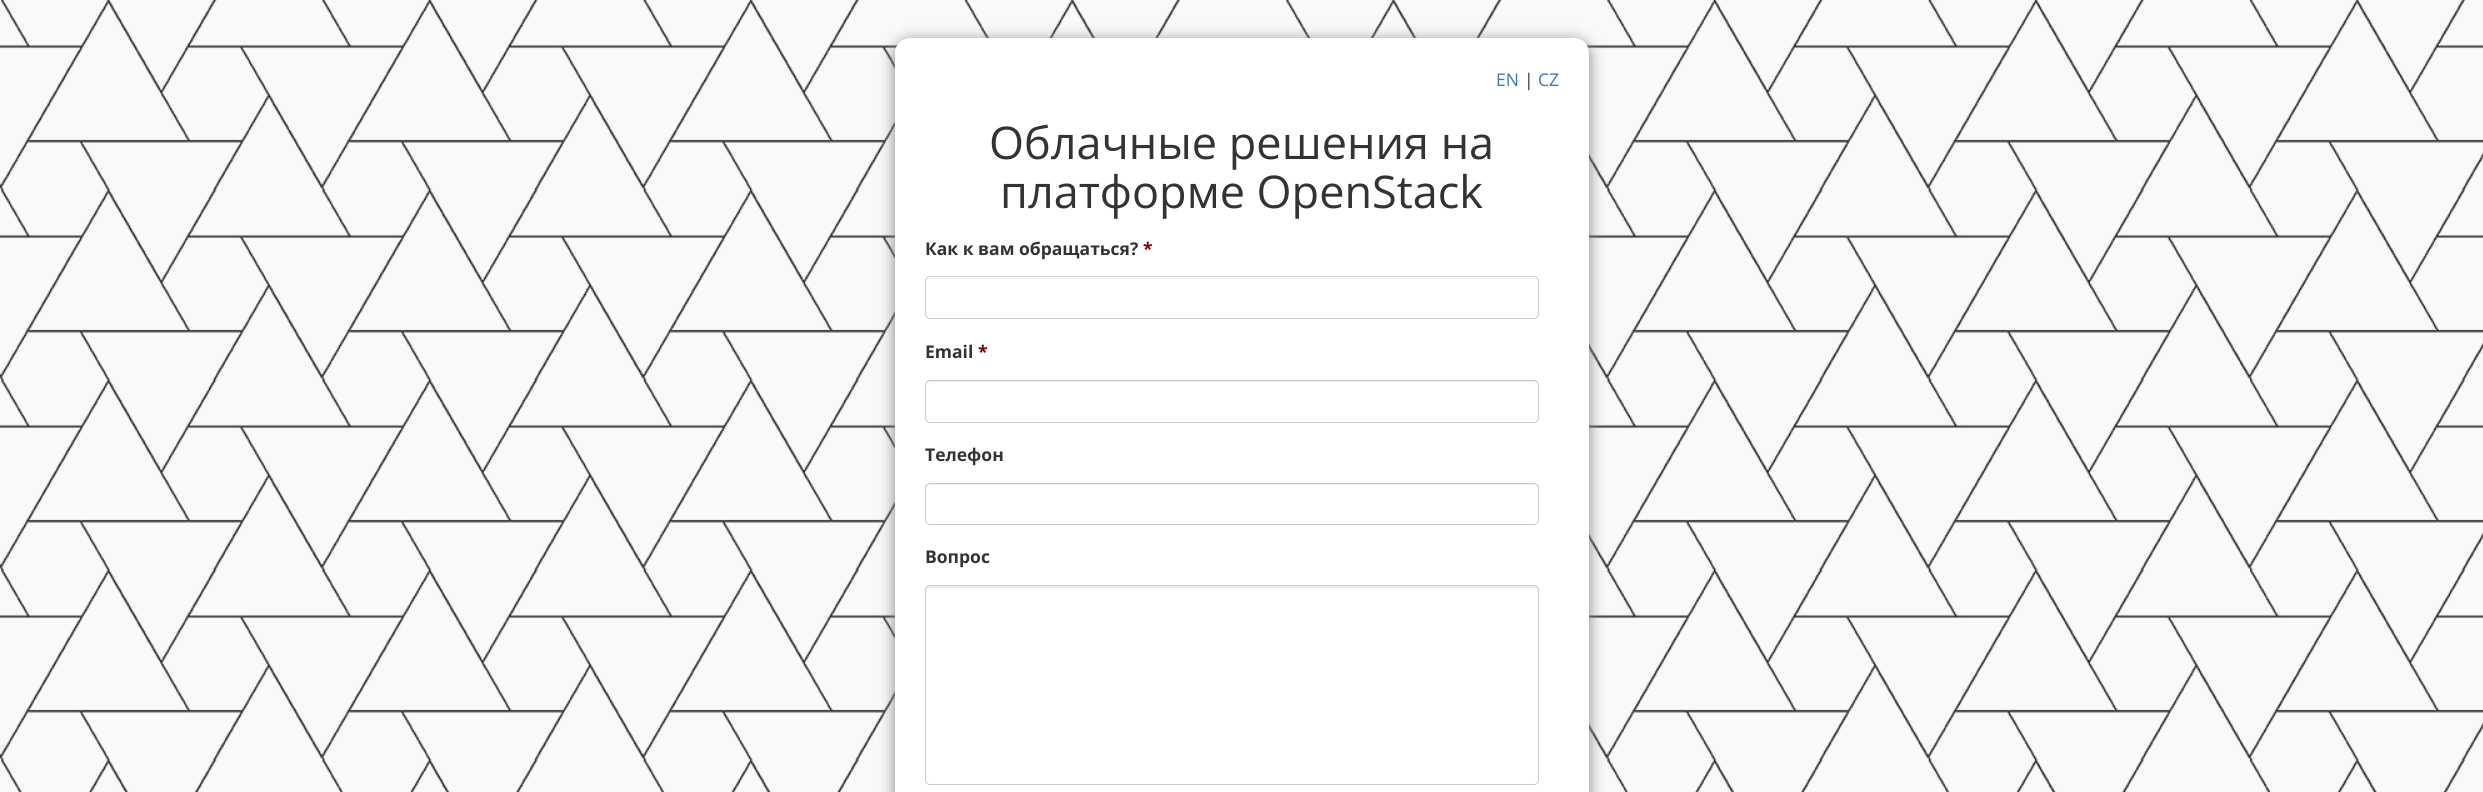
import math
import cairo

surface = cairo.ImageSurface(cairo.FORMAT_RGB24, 2483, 792)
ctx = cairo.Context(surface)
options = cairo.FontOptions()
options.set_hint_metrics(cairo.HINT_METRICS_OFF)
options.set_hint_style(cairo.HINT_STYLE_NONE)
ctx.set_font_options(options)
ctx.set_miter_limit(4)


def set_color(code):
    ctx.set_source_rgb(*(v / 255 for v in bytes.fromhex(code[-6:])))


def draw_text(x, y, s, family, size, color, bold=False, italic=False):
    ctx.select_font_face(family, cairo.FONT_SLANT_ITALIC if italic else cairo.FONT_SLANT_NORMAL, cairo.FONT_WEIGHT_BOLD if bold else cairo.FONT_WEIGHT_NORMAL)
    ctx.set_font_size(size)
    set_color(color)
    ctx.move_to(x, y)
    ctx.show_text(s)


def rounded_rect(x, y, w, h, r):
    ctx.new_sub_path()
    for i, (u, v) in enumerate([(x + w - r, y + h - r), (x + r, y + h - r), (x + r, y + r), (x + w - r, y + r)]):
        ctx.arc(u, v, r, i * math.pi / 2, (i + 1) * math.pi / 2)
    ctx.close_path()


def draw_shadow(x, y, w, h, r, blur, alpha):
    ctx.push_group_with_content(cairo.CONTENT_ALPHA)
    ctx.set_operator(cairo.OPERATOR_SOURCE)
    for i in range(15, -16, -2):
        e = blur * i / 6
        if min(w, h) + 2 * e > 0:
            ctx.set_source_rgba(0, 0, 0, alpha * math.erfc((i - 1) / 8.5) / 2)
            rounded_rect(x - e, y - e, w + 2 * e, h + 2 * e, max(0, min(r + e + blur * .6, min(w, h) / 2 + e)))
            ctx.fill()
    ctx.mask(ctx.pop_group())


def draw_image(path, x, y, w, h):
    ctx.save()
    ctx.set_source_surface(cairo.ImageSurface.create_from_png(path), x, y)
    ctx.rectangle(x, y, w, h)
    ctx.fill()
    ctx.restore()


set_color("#f9f9f9")
ctx.paint()
draw_image("assets/img1.png", 0, 0, 2483, 792)
set_color("#808080")
draw_shadow(895, 41, 694, 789, 15, 7.5, 1)
set_color("#ffffff")
rounded_rect(895, 38, 694, 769, 15)
ctx.fill()
draw_text(1496, 86, "EN", "Open Sans", 17.5, "#337ab7")
draw_text(1524, 86, "|", "Open Sans", 17.5, "#333333")
draw_text(1538, 86, "CZ", "Open Sans", 17.5, "#337ab7")
draw_text(989, 159, "Облачные решения на", "Open Sans", 45, "#333333")
draw_text(1000, 208, "платформе OpenStack", "Open Sans", 45, "#333333")
draw_text(925, 255, "Как к вам обращаться?", "Open Sans", 17.5, "#333333", bold=True)
draw_text(1143, 255, "*", "Open Sans", 17.5, "#790000", bold=True)
set_color("#ececec")
ctx.new_path()
ctx.move_to(930, 279)
ctx.line_to(1534, 279)
ctx.curve_to(1536, 279, 1538, 280, 1538, 282)
ctx.curve_to(1538, 280, 1536, 278, 1534, 278)
ctx.line_to(930, 278)
ctx.curve_to(928, 278, 926, 280, 926, 282)
ctx.curve_to(926, 280, 928, 279, 930, 279)
ctx.close_path()
ctx.fill()
rounded_rect(925.5, 276.5, 613, 42, 4.5)
set_color("#cccccc")
ctx.set_line_width(1)
ctx.stroke()
draw_text(925, 358, "Email", "Open Sans", 17.5, "#333333", bold=True)
draw_text(978, 358, "*", "Open Sans", 17.5, "#790000", bold=True)
set_color("#ececec")
ctx.new_path()
ctx.move_to(930, 382)
ctx.line_to(1534, 382)
ctx.curve_to(1536, 382, 1538, 384, 1538, 386)
ctx.line_to(1538, 385)
ctx.curve_to(1538, 383, 1536, 381, 1534, 381)
ctx.line_to(930, 381)
ctx.curve_to(928, 381, 926, 383, 926, 385)
ctx.line_to(926, 386)
ctx.curve_to(926, 384, 928, 382, 930, 382)
ctx.close_path()
ctx.fill()
rounded_rect(925.5, 380.5, 613, 42, 4.5)
set_color("#cccccc")
ctx.stroke()
draw_text(925, 461, "Телефон", "Open Sans", 17.5, "#333333", bold=True)
set_color("#ececec")
ctx.new_path()
ctx.move_to(930, 485)
ctx.line_to(1534, 485)
ctx.curve_to(1536, 485, 1538, 487, 1538, 489)
ctx.line_to(1538, 488)
ctx.curve_to(1538, 486, 1536, 484, 1534, 484)
ctx.line_to(930, 484)
ctx.curve_to(928, 484, 926, 486, 926, 488)
ctx.line_to(926, 489)
ctx.curve_to(926, 487, 928, 485, 930, 485)
ctx.close_path()
ctx.fill()
rounded_rect(925.5, 483.5, 613, 41, 4.5)
set_color("#cccccc")
ctx.stroke()
draw_text(925, 563, "Вопрос", "Open Sans", 17.5, "#333333", bold=True)
set_color("#ececec")
ctx.new_path()
ctx.move_to(930, 588)
ctx.line_to(1534, 588)
ctx.curve_to(1536, 588, 1538, 589, 1538, 591)
ctx.line_to(1538, 590)
ctx.curve_to(1538, 588, 1536, 586, 1534, 586)
ctx.line_to(930, 586)
ctx.curve_to(928, 586, 926, 588, 926, 590)
ctx.line_to(926, 591)
ctx.curve_to(926, 589, 928, 588, 930, 588)
ctx.close_path()
ctx.fill()
rounded_rect(925.5, 585.5, 613, 199, 4.5)
set_color("#cccccc")
ctx.stroke()
surface.write_to_png("output.png")
